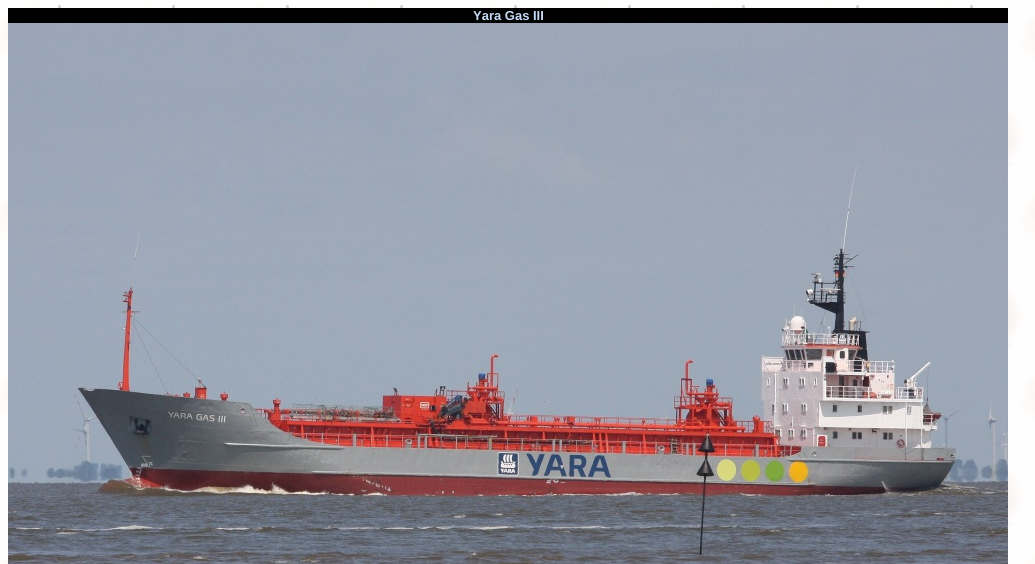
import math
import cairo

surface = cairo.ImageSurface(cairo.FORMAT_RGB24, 1035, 564)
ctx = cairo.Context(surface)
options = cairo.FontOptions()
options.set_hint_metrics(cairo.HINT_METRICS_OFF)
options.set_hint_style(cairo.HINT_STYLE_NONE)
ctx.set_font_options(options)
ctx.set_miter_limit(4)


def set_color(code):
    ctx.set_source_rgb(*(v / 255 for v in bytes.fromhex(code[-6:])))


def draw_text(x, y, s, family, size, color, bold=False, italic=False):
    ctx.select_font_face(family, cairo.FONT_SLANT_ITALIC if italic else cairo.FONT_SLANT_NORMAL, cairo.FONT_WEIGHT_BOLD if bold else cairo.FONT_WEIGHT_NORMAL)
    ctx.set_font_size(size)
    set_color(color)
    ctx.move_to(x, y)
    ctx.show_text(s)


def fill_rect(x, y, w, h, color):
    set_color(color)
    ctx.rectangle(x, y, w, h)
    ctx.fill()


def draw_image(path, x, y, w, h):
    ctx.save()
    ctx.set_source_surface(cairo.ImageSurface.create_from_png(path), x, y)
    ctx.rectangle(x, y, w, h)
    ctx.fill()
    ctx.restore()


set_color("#ffffff")
ctx.paint()
draw_image("assets/img1.png", 0, 0, 1035, 564)
fill_rect(8, 8, 1000, 15, "#000000")
draw_text(473, 20, "Yara Gas III", "Liberation Sans", 13, "#c5dbf3", bold=True)
draw_image("assets/img2.png", 8, 23, 1000, 541)
surface.write_to_png("output.png")
